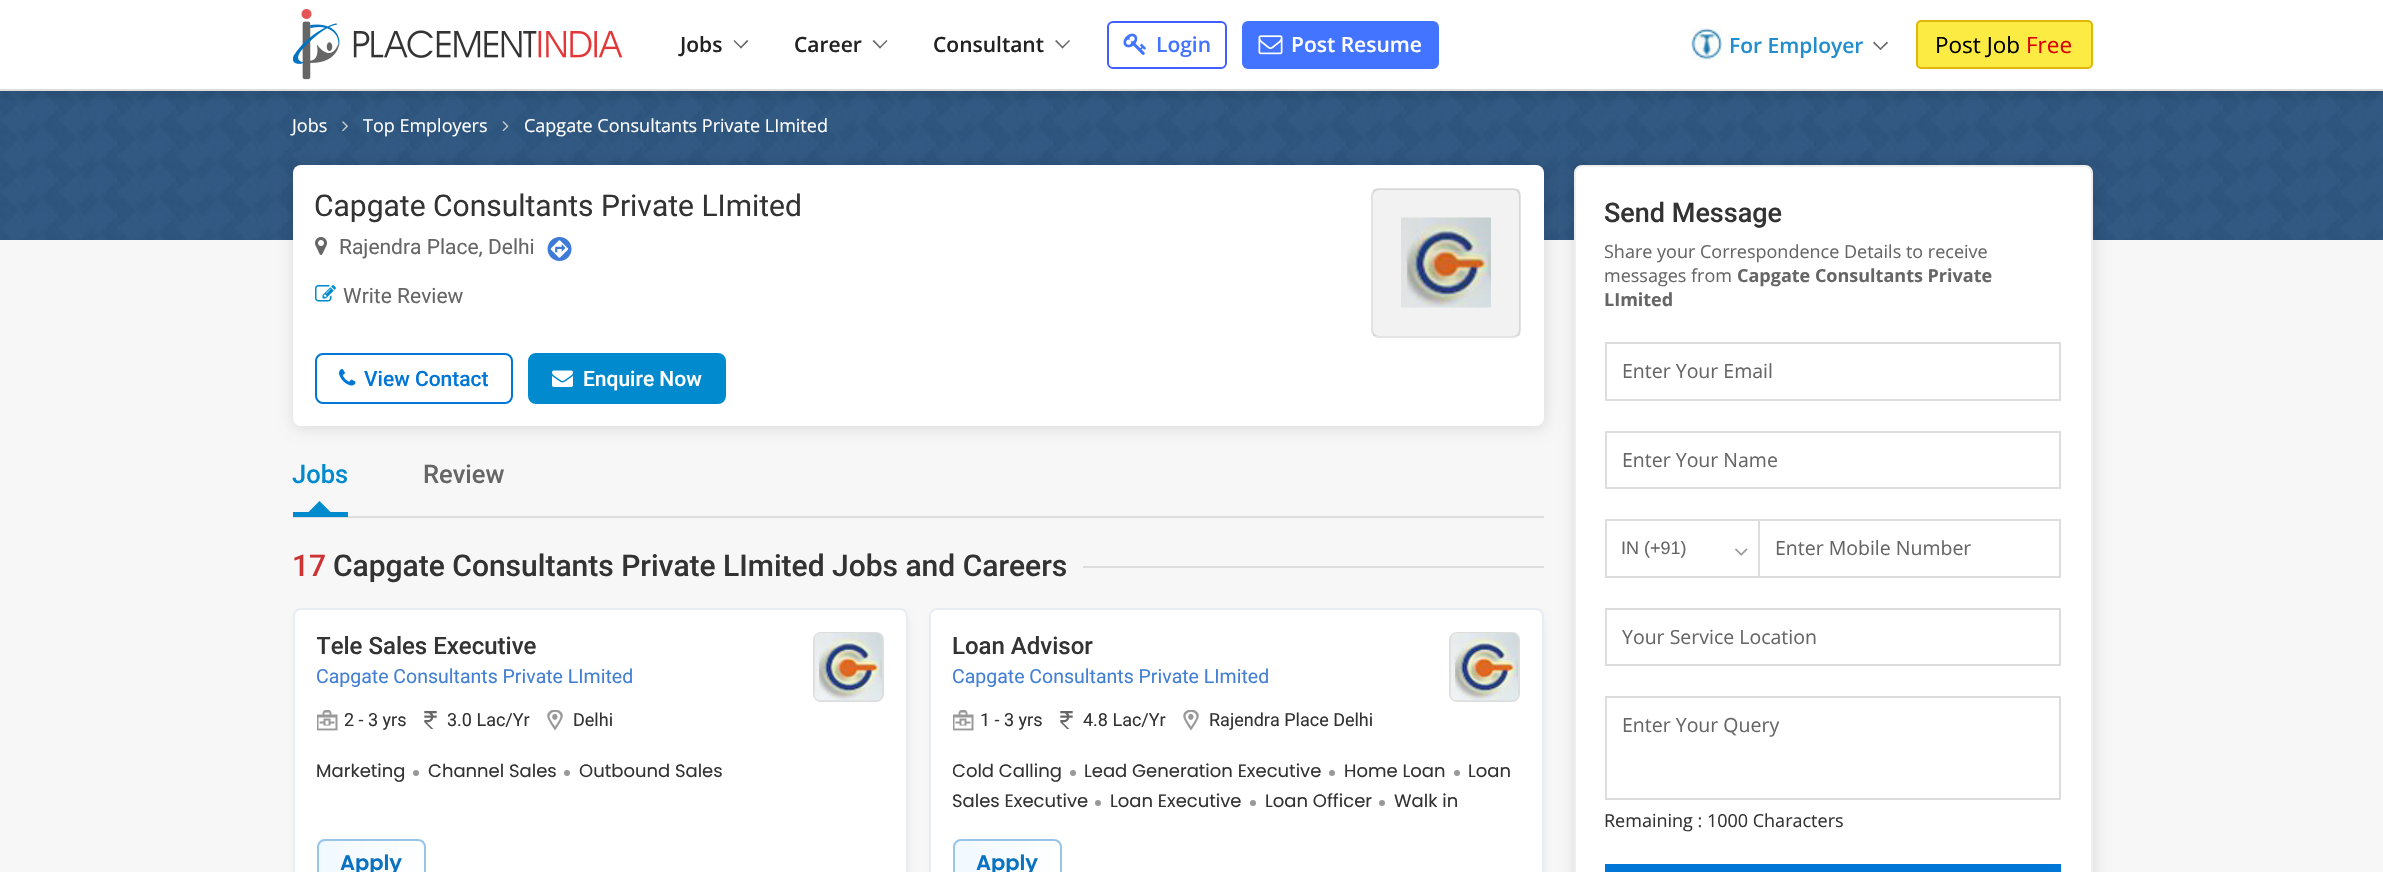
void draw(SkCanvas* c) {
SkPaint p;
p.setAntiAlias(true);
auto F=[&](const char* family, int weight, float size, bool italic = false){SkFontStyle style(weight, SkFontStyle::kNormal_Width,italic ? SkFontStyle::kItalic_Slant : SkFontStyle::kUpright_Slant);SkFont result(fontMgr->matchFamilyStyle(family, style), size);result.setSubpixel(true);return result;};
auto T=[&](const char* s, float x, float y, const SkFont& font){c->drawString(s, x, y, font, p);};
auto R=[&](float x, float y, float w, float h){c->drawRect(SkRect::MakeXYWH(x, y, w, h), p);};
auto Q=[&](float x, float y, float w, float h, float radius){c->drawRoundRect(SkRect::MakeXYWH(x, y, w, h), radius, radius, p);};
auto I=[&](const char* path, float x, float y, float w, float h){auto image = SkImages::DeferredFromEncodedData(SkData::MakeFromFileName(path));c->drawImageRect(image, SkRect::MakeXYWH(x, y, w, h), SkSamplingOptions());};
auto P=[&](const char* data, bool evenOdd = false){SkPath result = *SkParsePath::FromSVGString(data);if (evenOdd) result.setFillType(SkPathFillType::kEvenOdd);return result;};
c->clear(0xffffffff);
I("5.png",0,91,2383,149);
c->save();
c->clipRect(SkRect::MakeXYWH(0,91,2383,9));
p.setColor(0x1f000000);
p.setMaskFilter(SkMaskFilter::MakeBlur(kNormal_SkBlurStyle, 7.5));
c->drawRect(SkRect::MakeXYWH(0,3,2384,90),p);
p.setMaskFilter(nullptr);
c->restore();
p.setColor(0xffdddddd);
R(0,89,2383,2);
I("1.png",293,9,330,71);
auto f1 = F("Open Sans",600,21);
p.setColor(0xff222222);
T("Jobs",680,52,f1);
p.setColor(0xff666666);
c->drawPath(P("M748.5 41l-7.5 7.5l-1-1l7-7.5z"),p);
c->drawPath(P("M742 47.5l-1 1l-7.5-7.5l1-1z"),p);
p.setColor(0xff222222);
T("Career",794,52,f1);
p.setColor(0xff666666);
c->drawPath(P("M887.5 41l-7.5 7.5l-1-1l7.5-7.5z"),p);
c->drawPath(P("M881 47.5l-1 1l-7.5-7.5l1.5-1z"),p);
p.setColor(0xff222222);
T("Consultant",933,52,f1);
p.setColor(0xff666666);
c->drawPath(P("M1070 41l-7.5 7.5l-1-1l7.5-7.5z"),p);
c->drawPath(P("M1063.5 47.5l-1 1l-7.5-7.5l1.5-1z"),p);
p.setStroke(true);
p.setStrokeWidth(2);
p.setColor(0xff435eff);
c->drawRoundRect(SkRect::MakeXYWH(1108,22,118,46),5,5,p);
I("2.png",1123,33,23,22);
p.setStroke(false);
p.setColor(0xff4374ff);
T("Login",1156,52,f1);
c->drawRoundRect(SkRect::MakeXYWH(1243,22,195,46),5,5,p);
p.setStroke(true);
c->drawRoundRect(SkRect::MakeXYWH(1243,22,195,46),5,5,p);
I("3.png",1258,35,25,20);
p.setStroke(false);
p.setColor(0xffffffff);
T("Post Resume",1291,52,f1);
I("4.png",1691,28,31,32);
p.setColor(0xff228ecd);
T("For Employer",1729,53,f1);
p.setColor(0xff666666);
c->drawPath(P("M1888 43l-7.5 7l-1-1l7.5-7.5z"),p);
c->drawPath(P("M1881.5 49l-1 1l-7.5-7l1-1.5z"),p);
p.setColor(0xfffceb42);
c->drawRoundRect(SkRect::MakeXYWH(1917,21,175,47),4,4,p);
p.setStroke(true);
p.setColor(0xffe1b70c);
c->drawRoundRect(SkRect::MakeXYWH(1917,21,175,47),4,4,p);
auto f2 = F("Open Sans",400,22.5);
p.setStroke(false);
p.setColor(0xff000000);
T("Post Job",1935,53,f2);
p.setColor(0xffdd0000);
T("Free",2026,53,f2);
auto f3 = F("Open Sans",400,18);
p.setColor(0xffffffff);
T("Jobs",292,132,f3);
I("6.png",342,121,6,11);
T("Top Employers",363,132,f3);
I("7.png",502,121,7,11);
T("Capgate Consultants Private LImited",524,132,f3);
p.setColor(0xfff7f7f7);
R(0,240,2383,632);
p.setColor(0x1f000000);
p.setMaskFilter(SkMaskFilter::MakeBlur(kNormal_SkBlurStyle, 7.5));
c->drawRoundRect(SkRect::MakeXYWH(294,167,1251,261),8,8,p);
p.setMaskFilter(nullptr);
p.setColor(0xffffffff);
Q(293,165,1251,261,8);
auto f4 = F("Roboto",400,30);
p.setColor(0xff333333);
T("Capgate Consultants Private LImited",314,216,f4);
I("8.png",315,237,12,18);
auto f5 = F("Roboto",400,21);
p.setColor(0xff666666);
T("Rajendra Place, Delhi",339,254,f5);
I("9.png",547,237,25,24);
I("10.png",315,285,21,17);
T("Write Review",343,303,f5);
p.setStroke(true);
p.setColor(0xffe3e3e3);
c->drawRoundRect(SkRect::MakeXYWH(1372,189,148,148),7,7,p);
I("11.png",1401,217,90,91);
p.setStroke(false);
p.setColor(0x0d000000);
R(1373,189,147,147);
p.setStroke(true);
p.setColor(0xff0076d7);
c->drawRoundRect(SkRect::MakeXYWH(316,354,196,49),7,7,p);
I("12.png",339,369,17,17);
auto f6 = F("Roboto",500,21);
p.setStroke(false);
T("View Contact",364,386,f6);
p.setColor(0xff028acf);
c->drawRoundRect(SkRect::MakeXYWH(529,354,196,49),7,7,p);
p.setStroke(true);
c->drawRoundRect(SkRect::MakeXYWH(529,354,196,49),7,7,p);
I("13.png",552,370,21,17);
p.setStroke(false);
p.setColor(0xffffffff);
T("Enquire Now",583,386,f6);
p.setColor(0xffdddddd);
R(293,516,1251,2);
auto f7 = F("Roboto",500,25.5);
p.setColor(0xff028acf);
T("Jobs",292,483,f7);
c->drawPath(P("M334.5 516h-30l15-15z"),p);
R(293,512,55,5);
p.setColor(0xff666666);
T("Review",423,483,f7);
auto f8 = F("Roboto",500,30);
p.setColor(0xffcc3333);
T("17",292,576,f8);
p.setColor(0xff333333);
T("Capgate Consultants Private LImited Jobs and Careers",333,576,f8);
p.setColor(0xffdddddd);
R(1083,566,461,2);
p.setColor(0xffd3e2ef);
p.setMaskFilter(SkMaskFilter::MakeBlur(kNormal_SkBlurStyle, 4));
c->drawRoundRect(SkRect::MakeXYWH(300,618,606,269),3,3,p);
p.setMaskFilter(nullptr);
p.setColor(0xffffffff);
c->drawRoundRect(SkRect::MakeXYWH(294,609,613,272),7,7,p);
p.setStroke(true);
p.setColor(0xffe8edf3);
c->drawRoundRect(SkRect::MakeXYWH(294,609,613,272),7,7,p);
c->save();
c->clipRect(SkRect::MakeXYWH(317,632,453,60));
auto f9 = F("Roboto",500,24);
p.setStroke(false);
p.setColor(0xff333333);
T("Tele Sales Executive",316,654,f9);
c->restore();
auto f10 = F("Roboto",400,19.5);
p.setColor(0xff4380d4);
T("Capgate Consultants Private LImited",316,683,f10);
p.setStroke(true);
p.setColor(0xffdddddd);
c->drawRoundRect(SkRect::MakeXYWH(814,633,69,68),7,7,p);
I("14.png",814,633,68,68);
I("15.png",317,710,21,21);
auto f11 = F("Roboto",400,18);
p.setStroke(false);
p.setColor(0xff333333);
T("2 - 3 yrs",344,726,f11);
I("16.png",424,711,13,18);
T("3.0 Lac/Yr",447,726,f11);
I("17.png",547,710,16,21);
T("Delhi",573,726,f11);
auto f12 = F("Poppins",400,18);
T("Marketing",316,777,f12);
p.setColor(0xff999999);
c->drawCircle(416,773,3,p);
p.setColor(0xff333333);
T("Channel Sales",428,777,f12);
p.setColor(0xff999999);
c->drawCircle(567,773,3,p);
p.setColor(0xff333333);
T("Outbound Sales",579,777,f12);
c->save();
c->clipPath(P("M325 839h93c4.5 0 8 3.5 8 8v32c0 4.5-3.5 8-8 8h-93c-4.5 0-8-3.5-8-8v-32c0-4.5 3.5-8 8-8z"),true);
{
const SkColor colors[] = {0xfff1f9ff,0xffffffff};
const float stops[] = {0,1};
const SkPoint ends[] = {{318,863}, {425,863}};
p.setShader(SkGradientShader::MakeLinear(ends, colors, stops, 2, SkTileMode::kClamp));
p.setAlpha(255);
}
R(318,839,107,33);
c->restore();
p.setStroke(true);
p.setShader(nullptr);
p.setColor(0xff96c5e9);
c->drawRoundRect(SkRect::MakeXYWH(318,840,107,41),7,7,p);
auto f13 = F("Poppins",600,21);
p.setStroke(false);
p.setColor(0xff0972c1);
T("Apply",340,870,f13);
p.setColor(0xffd3e2ef);
p.setMaskFilter(SkMaskFilter::MakeBlur(kNormal_SkBlurStyle, 4));
c->drawRoundRect(SkRect::MakeXYWH(936,618,606,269),3,3,p);
p.setMaskFilter(nullptr);
p.setColor(0xffffffff);
c->drawRoundRect(SkRect::MakeXYWH(930,609,613,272),7,7,p);
p.setStroke(true);
p.setColor(0xffe8edf3);
c->drawRoundRect(SkRect::MakeXYWH(930,609,613,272),7,7,p);
p.setStroke(false);
p.setColor(0xff333333);
T("Loan Advisor",952,654,f9);
p.setColor(0xff4380d4);
T("Capgate Consultants Private LImited",952,683,f10);
p.setStroke(true);
p.setColor(0xffdddddd);
c->drawRoundRect(SkRect::MakeXYWH(1450,633,69,68),7,7,p);
I("18.png",1450,633,68,68);
I("15.png",953,710,21,21);
p.setStroke(false);
p.setColor(0xff333333);
T("1 - 3 yrs",980,726,f11);
I("16.png",1060,711,13,18);
T("4.8 Lac/Yr",1083,726,f11);
I("17.png",1183,710,16,21);
T("Rajendra Place Delhi",1209,726,f11);
c->save();
c->clipRect(SkRect::MakeXYWH(953,756,567,60));
T("Cold Calling",952,777,f12);
c->restore();
p.setColor(0xff999999);
c->drawCircle(1073,773,3,p);
p.setColor(0xff333333);
T("Lead Generation Executive",1084,777,f12);
p.setColor(0xff999999);
c->drawCircle(1457,773,3,p);
p.setColor(0xff333333);
T("Loan",1468,777,f12);
c->save();
c->clipRect(SkRect::MakeXYWH(953,756,567,60));
T("Sales Executive",952,807,f12);
c->restore();
p.setColor(0xff999999);
c->drawCircle(1332,773,3,p);
p.setColor(0xff333333);
T("Home Loan",1344,777,f12);
p.setColor(0xff999999);
c->drawCircle(1098,803,3,p);
p.setColor(0xff333333);
T("Loan Executive",1110,807,f12);
p.setColor(0xff999999);
c->drawCircle(1253,803,3,p);
p.setColor(0xff333333);
T("Loan Officer",1265,807,f12);
p.setColor(0xff999999);
c->drawCircle(1382,803,3,p);
p.setColor(0xff333333);
T("Walk in",1394,807,f12);
c->save();
c->clipPath(P("M961 839h93c4.5 0 8 3.5 8 8v32c0 4.5-3.5 8-8 8h-93c-4.5 0-8-3.5-8-8v-32c0-4.5 3.5-8 8-8z"),true);
{
const SkColor colors[] = {0xfff1f9ff,0xffffffff};
const float stops[] = {0,1};
const SkPoint ends[] = {{954,863}, {1061,863}};
p.setShader(SkGradientShader::MakeLinear(ends, colors, stops, 2, SkTileMode::kClamp));
p.setAlpha(255);
}
R(954,839,107,33);
c->restore();
p.setStroke(true);
p.setShader(nullptr);
p.setColor(0xff96c5e9);
c->drawRoundRect(SkRect::MakeXYWH(954,840,107,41),7,7,p);
p.setStroke(false);
p.setColor(0xff0972c1);
T("Apply",976,870,f13);
p.setColor(0x1f000000);
p.setMaskFilter(SkMaskFilter::MakeBlur(kNormal_SkBlurStyle, 7.5));
c->drawRoundRect(SkRect::MakeXYWH(1575,167,519,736),8,8,p);
p.setMaskFilter(nullptr);
p.setColor(0xffffffff);
c->drawRoundRect(SkRect::MakeXYWH(1575,166,517,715),7,7,p);
p.setStroke(true);
p.setColor(0xffeeeeee);
c->drawRoundRect(SkRect::MakeXYWH(1575,166,517,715),7,7,p);
auto f14 = F("Roboto",500,27);
p.setStroke(false);
p.setColor(0xff333333);
T("Send Message",1604,222,f14);
p.setColor(0xff666666);
T("Share your Correspondence Details to receive",1604,258,f3);
T("messages from",1604,282,f3);
auto f15 = F("Open Sans",700,18);
T("Capgate Consultants Private",1737,282,f15);
T("LImited",1604,306,f15);
p.setStroke(true);
p.setColor(0xffdddddd);
c->drawRect(SkRect::MakeXYWH(1606,343,454,57),p);
auto f16 = F("Open Sans",400,19.5);
p.setStroke(false);
p.setColor(0xff666666);
T("Enter Your Email",1622,378,f16);
p.setStroke(true);
p.setColor(0xffdddddd);
c->drawRect(SkRect::MakeXYWH(1606,432,454,56),p);
p.setStroke(false);
p.setColor(0xff666666);
T("Enter Your Name",1622,467,f16);
p.setColor(0xffdddddd);
R(1605,519,153,2);
R(1605,576,153,2);
R(1605,519,2,59);
auto f17 = F("Liberation Sans",400,18);
p.setColor(0xff666666);
T("IN (+91)",1621,554,f17);
I("19.png",1735,548,13,8);
p.setStroke(true);
p.setColor(0xffdddddd);
c->drawRect(SkRect::MakeXYWH(1759,520,301,57),p);
p.setStroke(false);
p.setColor(0xff666666);
T("Enter Mobile Number",1775,555,f16);
p.setStroke(true);
p.setColor(0xffdddddd);
c->drawRect(SkRect::MakeXYWH(1606,609,454,56),p);
p.setStroke(false);
p.setColor(0xff666666);
T("Your Service Location",1622,644,f16);
p.setStroke(true);
p.setColor(0xffdddddd);
c->drawRect(SkRect::MakeXYWH(1606,697,454,102),p);
p.setStroke(false);
p.setColor(0xff666666);
T("Enter Your Query",1622,732,f16);
p.setColor(0xff333333);
T("Remaining : 1000 Characters",1604,827,f3);
p.setColor(0xff0076d7);
R(1605,864,456,8);
}
